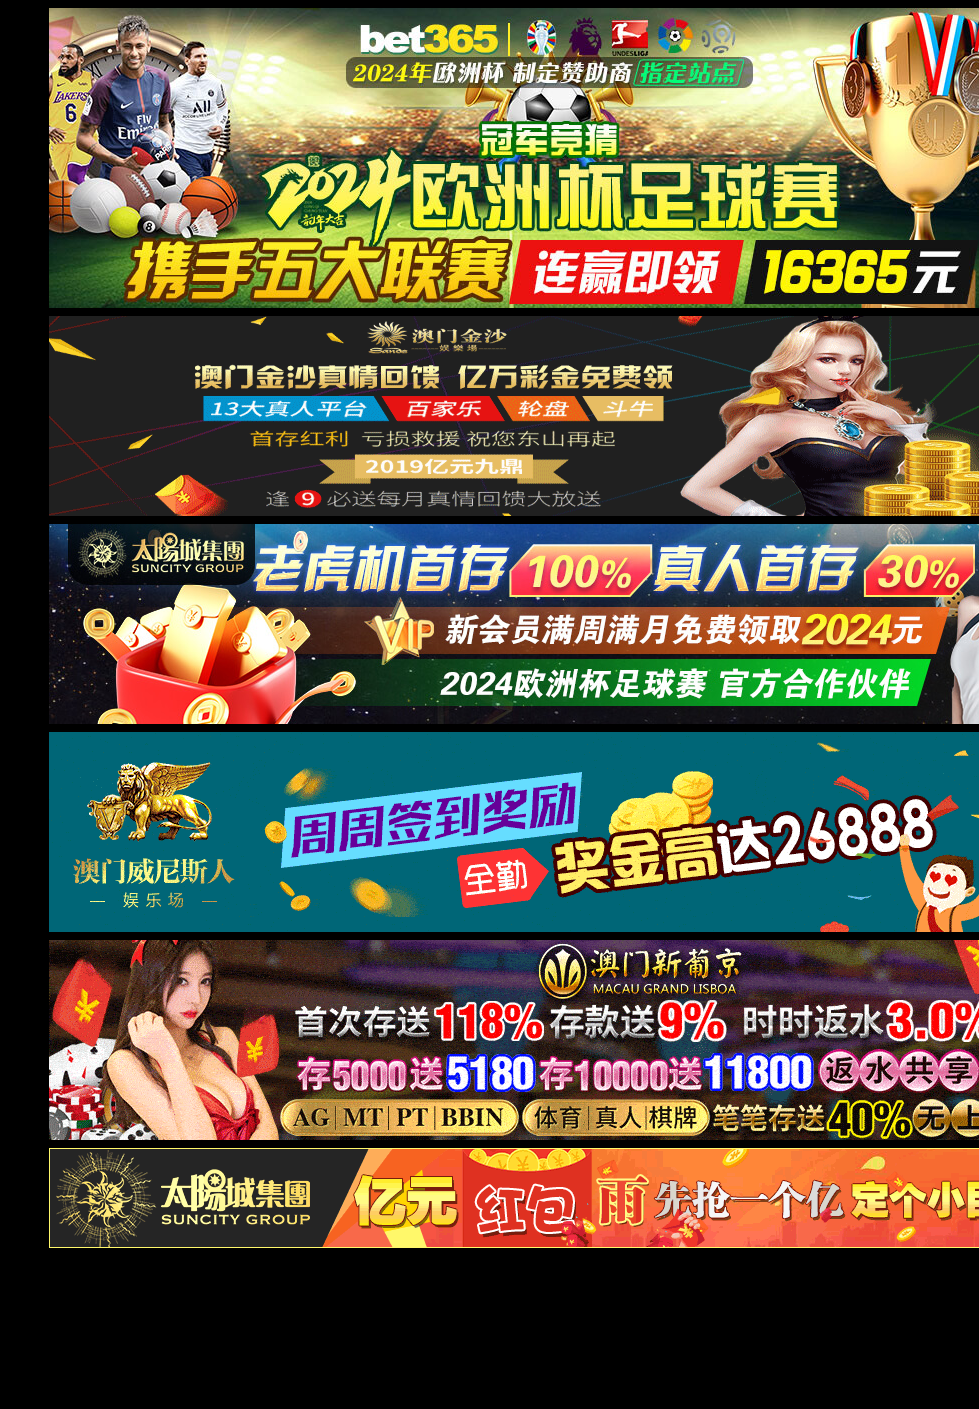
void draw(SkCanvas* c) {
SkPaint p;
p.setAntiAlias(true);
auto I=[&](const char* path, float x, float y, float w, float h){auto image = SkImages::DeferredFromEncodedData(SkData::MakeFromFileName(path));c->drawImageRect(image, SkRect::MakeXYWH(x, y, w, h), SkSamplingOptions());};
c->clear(0xff000000);
I("1.png",49,8,930,1240);
}
